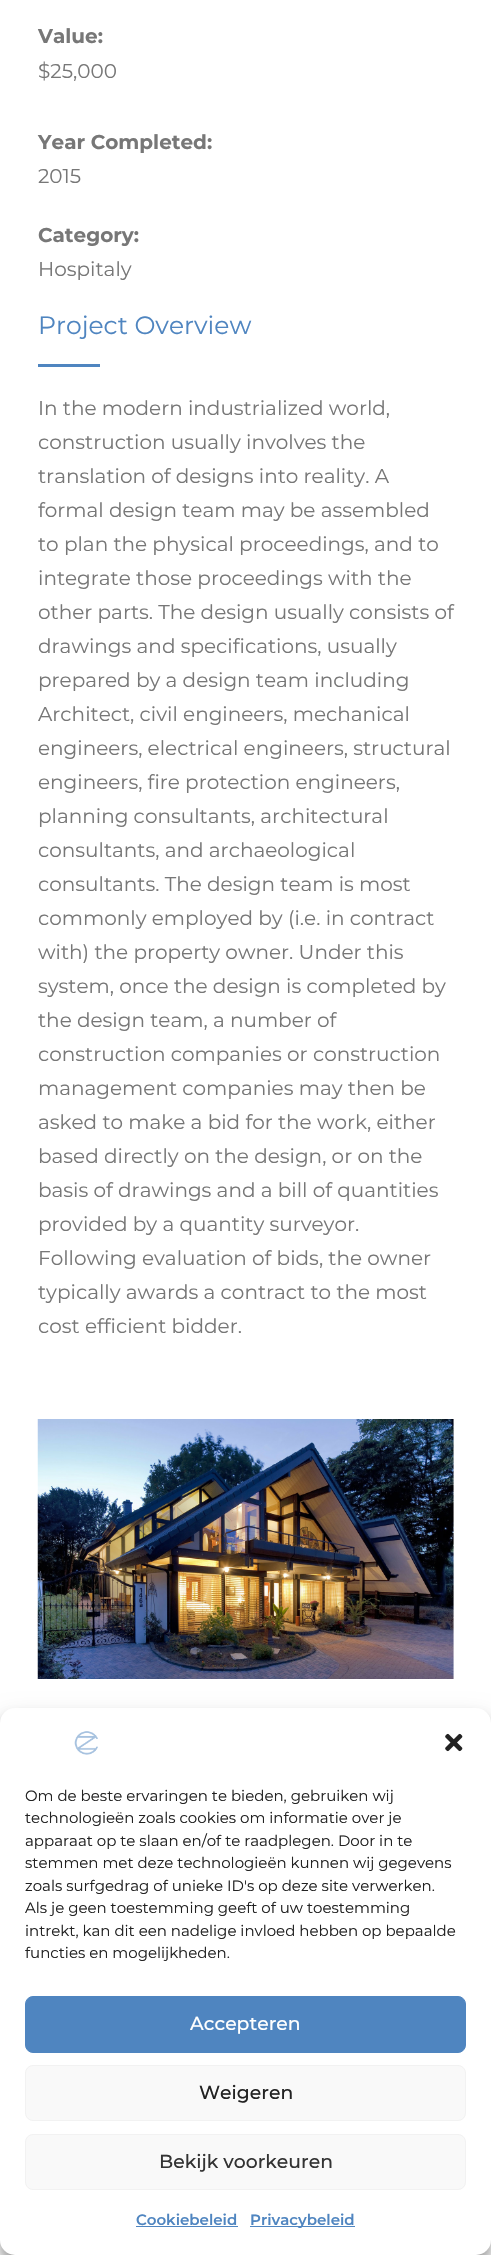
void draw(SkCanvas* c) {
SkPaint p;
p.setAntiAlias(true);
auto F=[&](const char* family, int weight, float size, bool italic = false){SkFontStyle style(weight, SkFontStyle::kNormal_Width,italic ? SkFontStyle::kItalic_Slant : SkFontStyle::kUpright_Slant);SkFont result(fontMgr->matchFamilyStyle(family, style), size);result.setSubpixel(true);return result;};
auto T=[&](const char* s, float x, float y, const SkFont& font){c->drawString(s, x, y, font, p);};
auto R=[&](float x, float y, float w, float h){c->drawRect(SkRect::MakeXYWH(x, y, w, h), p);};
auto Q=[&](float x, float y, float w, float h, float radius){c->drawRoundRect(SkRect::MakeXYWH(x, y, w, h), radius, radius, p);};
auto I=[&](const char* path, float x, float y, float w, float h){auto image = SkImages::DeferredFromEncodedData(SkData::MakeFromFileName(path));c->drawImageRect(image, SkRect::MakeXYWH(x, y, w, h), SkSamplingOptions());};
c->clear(0xffffffff);
auto f1 = F("Montserrat",700,20);
p.setColor(0xff777777);
T("Value:",38,43,f1);
auto f2 = F("Montserrat",400,20);
T("$25,000",38,78,f2);
T("Year Completed:",38,149,f1);
T("2015",38,183,f2);
T("Category:",38,242,f1);
T("Hospitaly",38,276,f2);
auto f3 = F("Montserrat",400,25);
p.setColor(0xff4f85c0);
T("Project Overview",38,334,f3);
R(38,364,62,3);
p.setColor(0xff777777);
T("In the modern industrialized world,",38,415,f2);
T("construction usually involves the",38,449,f2);
T("translation of designs into reality. A",38,483,f2);
T("formal design team may be assembled",38,517,f2);
T("to plan the physical proceedings, and to",38,551,f2);
T("integrate those proceedings with the",38,585,f2);
T("other parts. The design usually consists of",38,619,f2);
T("drawings and specifications, usually",38,653,f2);
T("prepared by a design team including",38,687,f2);
T("Architect, civil engineers, mechanical",38,721,f2);
T("engineers, electrical engineers, structural",38,755,f2);
T("engineers, fire protection engineers,",38,789,f2);
T("planning consultants, architectural",38,823,f2);
T("consultants, and archaeological",38,857,f2);
T("consultants. The design team is most",38,891,f2);
T("commonly employed by (i.e. in contract",38,925,f2);
T("with) the property owner. Under this",38,959,f2);
T("system, once the design is completed by",38,993,f2);
T("the design team, a number of",38,1027,f2);
T("construction companies or construction",38,1061,f2);
T("management companies may then be",38,1095,f2);
T("asked to make a bid for the work, either",38,1129,f2);
T("based directly on the design, or on the",38,1163,f2);
T("basis of drawings and a bill of quantities",38,1197,f2);
T("provided by a quantity surveyor.",38,1231,f2);
T("Following evaluation of bids, the owner",38,1265,f2);
T("typically awards a contract to the most",38,1299,f2);
T("cost efficient bidder.",38,1333,f2);
I("1.png",37,1419,417,260);
p.setColor(0x3b000000);
p.setMaskFilter(SkMaskFilter::MakeBlur(kNormal_SkBlurStyle, 4));
c->drawRoundRect(SkRect::MakeXYWH(0,1715,491,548),15,15,p);
p.setMaskFilter(nullptr);
p.setColor(0x30000000);
p.setMaskFilter(SkMaskFilter::MakeBlur(kNormal_SkBlurStyle, 12.5));
c->drawRoundRect(SkRect::MakeXYWH(0,1720,491,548),15,15,p);
p.setMaskFilter(nullptr);
p.setColor(0xffffffff);
Q(0,1708,491,547,15);
I("2.png",74,1731,24,24);
I("3.png",445,1733,18,19);
auto f4 = F("Montserrat",400,15);
p.setColor(0xff222222);
T("Om de beste ervaringen te bieden, gebruiken wij",25,1801,f4);
T("technologieën zoals cookies om informatie over je",25,1823,f4);
T("apparaat op te slaan en/of te raadplegen. Door in te",25,1846,f4);
T("stemmen met deze technologieën kunnen wij gegevens",25,1868,f4);
T("zoals surfgedrag of unieke ID's op deze site verwerken.",25,1891,f4);
T("Als je geen toestemming geeft of uw toestemming",25,1913,f4);
T("intrekt, kan dit een nadelige invloed hebben op bepaalde",25,1936,f4);
T("functies en mogelijkheden.",25,1958,f4);
p.setColor(0xff4f85c0);
c->drawRoundRect(SkRect::MakeXYWH(25.5,1996.5,440,56),7.5,7.5,p);
p.setStroke(true);
p.setStrokeWidth(1);
c->drawRoundRect(SkRect::MakeXYWH(25.5,1996.5,440,56),7.5,7.5,p);
auto f5 = F("Montserrat",500,18.75);
p.setStroke(false);
p.setColor(0xffffffff);
T("Accepteren",190,2030,f5);
p.setColor(0xfff9f9f9);
c->drawRoundRect(SkRect::MakeXYWH(25.5,2065.5,440,55),7.5,7.5,p);
p.setStroke(true);
p.setColor(0xfff2f2f2);
c->drawRoundRect(SkRect::MakeXYWH(25.5,2065.5,440,55),7.5,7.5,p);
p.setStroke(false);
p.setColor(0xff222222);
T("Weigeren",199,2099,f5);
p.setColor(0xfff9f9f9);
c->drawRoundRect(SkRect::MakeXYWH(25.5,2134.5,440,55),7.5,7.5,p);
p.setStroke(true);
p.setColor(0xfff2f2f2);
c->drawRoundRect(SkRect::MakeXYWH(25.5,2134.5,440,55),7.5,7.5,p);
p.setStroke(false);
p.setColor(0xff333333);
T("Bekijk voorkeuren",159,2168,f5);
auto f6 = F("Montserrat",600,15);
p.setColor(0xff4f85c0);
T("Cookiebeleid",136,2225,f6);
R(136,2226,102,1);
R(250,2226,105,1);
T("Privacybeleid",250,2225,f6);
}
